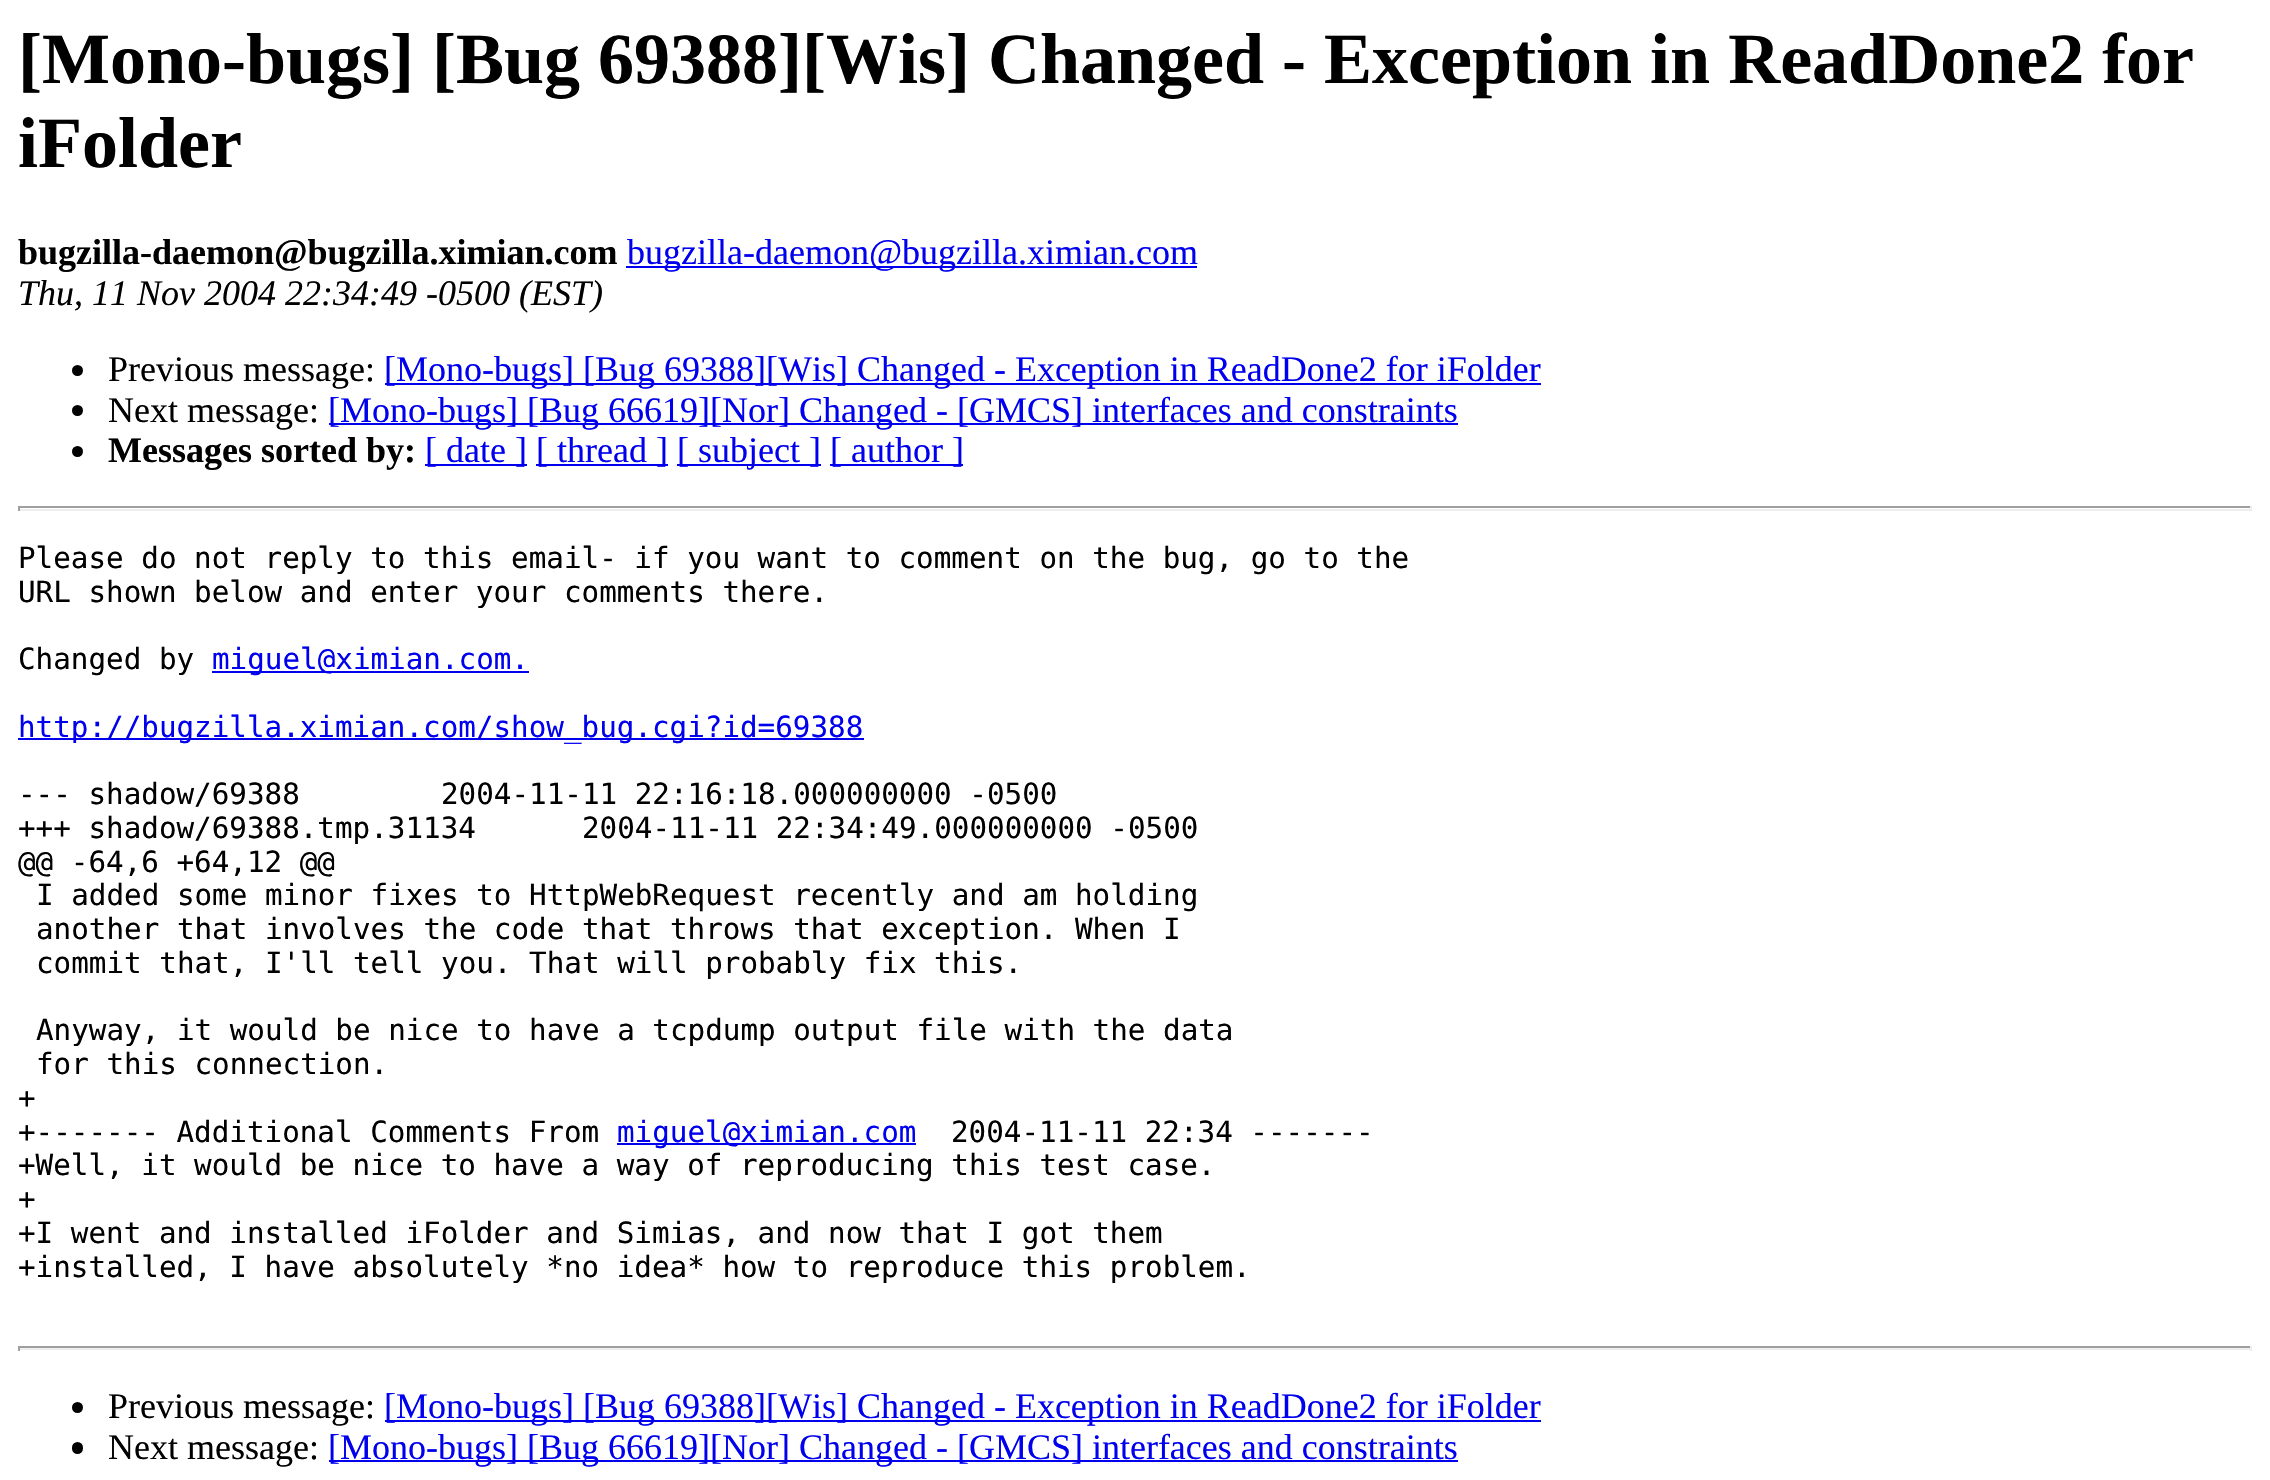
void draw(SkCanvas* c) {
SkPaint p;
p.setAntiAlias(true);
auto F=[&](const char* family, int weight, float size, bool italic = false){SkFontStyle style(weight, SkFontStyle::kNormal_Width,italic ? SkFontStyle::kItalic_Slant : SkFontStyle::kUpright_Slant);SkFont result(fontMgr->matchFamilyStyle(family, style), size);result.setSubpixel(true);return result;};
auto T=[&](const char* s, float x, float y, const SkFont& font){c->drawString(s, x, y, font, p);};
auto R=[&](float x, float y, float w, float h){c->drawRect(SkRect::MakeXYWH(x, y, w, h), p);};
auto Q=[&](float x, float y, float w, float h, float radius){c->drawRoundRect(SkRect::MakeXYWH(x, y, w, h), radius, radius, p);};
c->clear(0xffffffff);
auto f1 = F("Liberation Serif",700,72);
p.setColor(0xff000000);
T("[Mono-bugs] [Bug 69388][Wis] Changed - Exception in ReadDone2 for",18,83,f1);
T("iFolder",18,167,f1);
auto f2 = F("Liberation Serif",700,36);
T("bugzilla-daemon@bugzilla.ximian.com",18,264,f2);
p.setColor(0xff0000ee);
R(626,266,571,2);
auto f3 = F("Liberation Serif",400,36);
T("bugzilla-daemon@bugzilla.ximian.com",627,264,f3);
auto f4 = F("Liberation Serif",400,36,true);
p.setColor(0xff000000);
T("Thu, 11 Nov 2004 22:34:49 -0500 (EST)",18,305,f4);
c->drawCircle(77.5,370.5,5.5,p);
T("Previous message:",108,381,f3);
p.setColor(0xff0000ee);
R(385,383,1156,2);
T("[Mono-bugs] [Bug 69388][Wis] Changed - Exception in ReadDone2 for iFolder",384,381,f3);
p.setColor(0xff000000);
c->drawCircle(77.5,410.5,5.5,p);
T("Next message:",108,422,f3);
p.setColor(0xff0000ee);
R(329,423,1129,2);
T("[Mono-bugs] [Bug 66619][Nor] Changed - [GMCS] interfaces and constraints",328,422,f3);
p.setColor(0xff000000);
c->drawCircle(77.5,451.5,5.5,p);
T("Messages sorted by:",108,462,f2);
p.setColor(0xff0000ee);
R(425,464,102,2);
T("[ date ]",425,462,f3);
R(536,464,132,2);
T("[ thread ]",536,462,f3);
R(677,464,144,2);
T("[ subject ]",677,462,f3);
R(830,464,133,2);
T("[ author ]",830,462,f3);
p.setColor(0xff9f9f9f);
R(18,506,2234,2);
p.setColor(0xffeeeeee);
R(2250,506,2,5);
R(18,509,2234,2);
p.setColor(0xff9f9f9f);
R(18,506,2,5);
auto f5 = F("DejaVu Sans Mono",400,29.25);
p.setColor(0xff000000);
T("Please do not reply to this email- if you want to comment on the bug, go to the",18,568,f5);
T("URL shown below and enter your comments there.",18,602,f5);
T("Changed by",18,669,f5);
p.setColor(0xff0000ee);
R(212,671,317,2);
T("miguel@ximian.com.",212,669,f5);
R(18,738,846,2);
T("http://bugzilla.ximian.com/show_bug.cgi?id=69388",18,737,f5);
p.setColor(0xff000000);
T("--- shadow/69388",18,804,f5);
T("2004-11-11 22:16:18.000000000 -0500",441,804,f5);
T("+++ shadow/69388.tmp.31134",18,838,f5);
T("2004-11-11 22:34:49.000000000 -0500",582,838,f5);
T("@@ -64,6 +64,12 @@",18,872,f5);
T("I added some minor fixes to HttpWebRequest recently and am holding",36,905,f5);
T("another that involves the code that throws that exception. When I",36,939,f5);
T("commit that, I'll tell you. That will probably fix this.",36,973,f5);
T("Anyway, it would be nice to have a tcpdump output file with the data",36,1040,f5);
T("for this connection.",36,1074,f5);
T("+",18,1108,f5);
T("+------- Additional Comments From",18,1142,f5);
p.setColor(0xff0000ee);
R(617,1143,299,2);
T("miguel@ximian.com",617,1142,f5);
p.setColor(0xff000000);
T("2004-11-11 22:34 -------",951,1142,f5);
T("+Well, it would be nice to have a way of reproducing this test case.",18,1175,f5);
T("+",18,1209,f5);
T("+I went and installed iFolder and Simias, and now that I got them",18,1243,f5);
T("+installed, I have absolutely *no idea* how to reproduce this problem.",18,1277,f5);
p.setColor(0xff9f9f9f);
R(18,1346,2234,2);
p.setColor(0xffeeeeee);
R(2250,1346,2,5);
R(18,1348,2234,2);
p.setColor(0xff9f9f9f);
R(18,1346,2,5);
p.setColor(0xff000000);
c->drawCircle(77.5,1407.5,5.5,p);
T("Previous message:",108,1418,f3);
p.setColor(0xff0000ee);
R(385,1420,1156,2);
T("[Mono-bugs] [Bug 69388][Wis] Changed - Exception in ReadDone2 for iFolder",384,1418,f3);
p.setColor(0xff000000);
Q(72,1442,11,12,5.5);
T("Next message:",108,1459,f3);
p.setColor(0xff0000ee);
R(329,1460,1129,2);
T("[Mono-bugs] [Bug 66619][Nor] Changed - [GMCS] interfaces and constraints",328,1459,f3);
}
